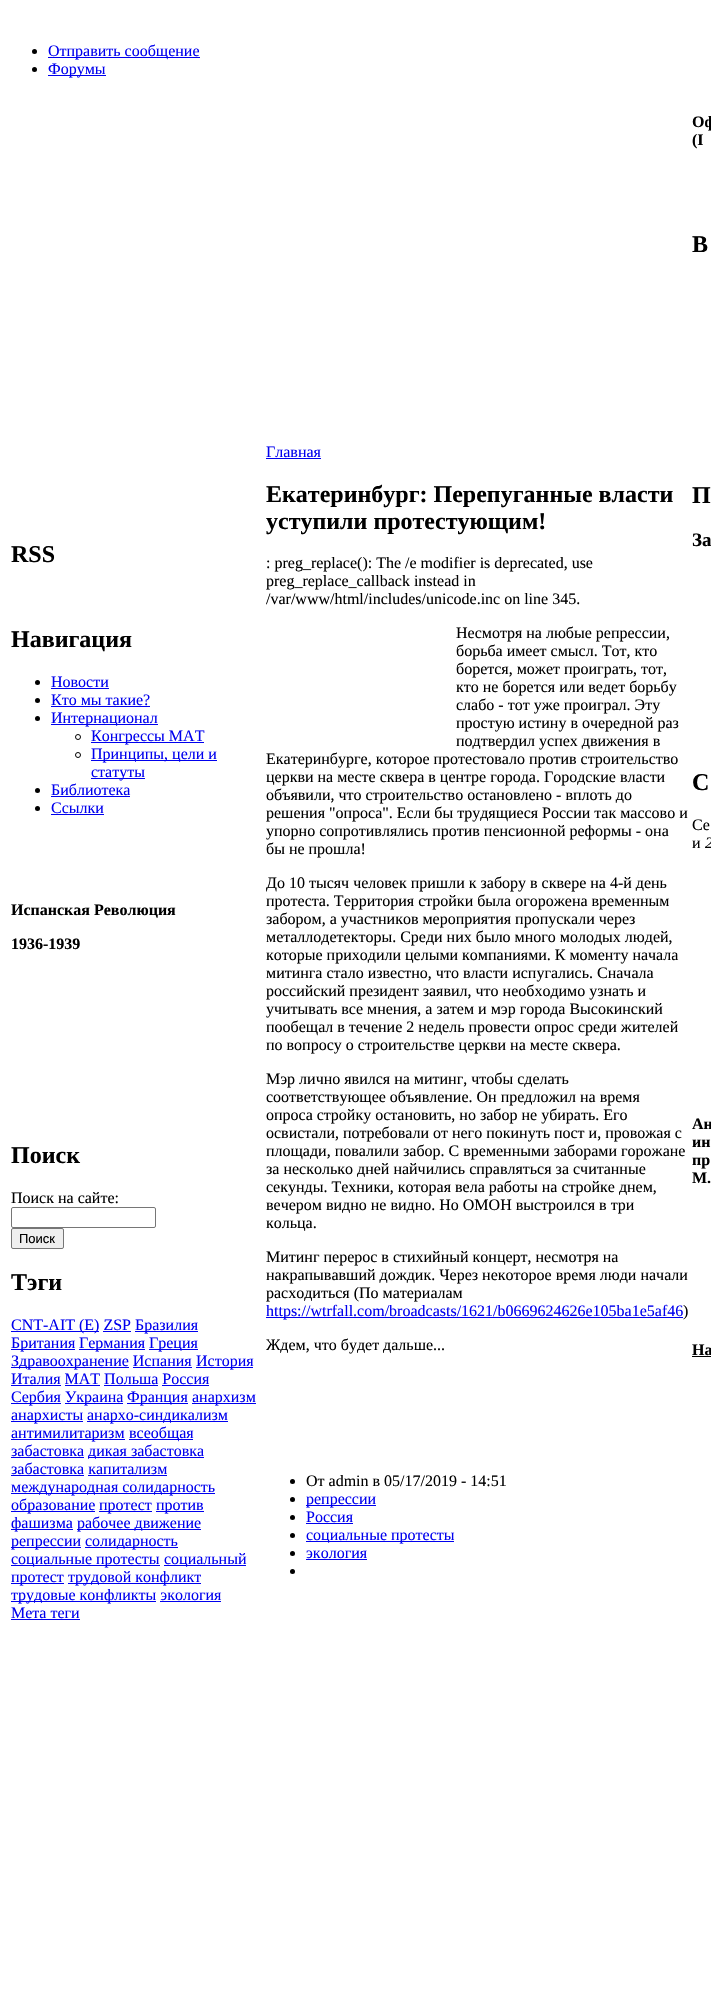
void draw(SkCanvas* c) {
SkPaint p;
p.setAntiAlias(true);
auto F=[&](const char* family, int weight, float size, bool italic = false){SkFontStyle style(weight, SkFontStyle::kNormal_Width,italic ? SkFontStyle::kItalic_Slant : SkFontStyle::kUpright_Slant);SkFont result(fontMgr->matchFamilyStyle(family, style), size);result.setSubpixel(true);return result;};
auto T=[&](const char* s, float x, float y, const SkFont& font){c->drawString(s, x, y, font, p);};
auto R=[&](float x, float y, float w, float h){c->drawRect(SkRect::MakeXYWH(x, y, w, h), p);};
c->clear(0xffffffff);
p.setColor(0xff000000);
c->drawCircle(34.5,51.5,2.5,p);
p.setColor(0xff0000ee);
R(48,57,152,1);
auto f1 = F("Liberation Serif",400,16);
T("Отправить сообщение",48,56,f1);
p.setColor(0xff000000);
c->drawCircle(34.5,69.5,2.5,p);
p.setColor(0xff0000ee);
R(48,75,58,1);
T("Форумы",48,74,f1);
auto f2 = F("Liberation Serif",700,24);
p.setColor(0xff000000);
T("RSS",11,562,f2);
T("Навигация",11,647,f2);
c->drawCircle(37.5,682.5,2.5,p);
p.setColor(0xff0000ee);
T("Новости",51,687,f1);
R(51,688,58,1);
p.setColor(0xff000000);
c->drawCircle(37.5,700.5,2.5,p);
p.setColor(0xff0000ee);
T("Кто мы такие?",51,705,f1);
R(51,706,99,1);
p.setColor(0xff000000);
c->drawCircle(37.5,718.5,2.5,p);
p.setColor(0xff0000ee);
R(51,724,107,1);
T("Интернационал",51,723,f1);
p.setStroke(true);
p.setStrokeWidth(1);
p.setColor(0xff000000);
c->drawCircle(78,737,2.5,p);
p.setStroke(false);
p.setColor(0xff0000ee);
R(91,742,113,1);
T("Конгрессы МАТ",91,741,f1);
p.setStroke(true);
p.setColor(0xff000000);
c->drawCircle(78,755,2.5,p);
p.setStroke(false);
p.setColor(0xff0000ee);
R(91,760,126,1);
T("Принципы, цели и",91,759,f1);
R(91,778,54,1);
T("статуты",91,777,f1);
p.setColor(0xff000000);
c->drawCircle(37.5,790.5,2.5,p);
p.setColor(0xff0000ee);
T("Библиотека",51,795,f1);
R(51,796,79,1);
p.setColor(0xff000000);
c->drawCircle(37.5,808.5,2.5,p);
p.setColor(0xff0000ee);
T("Ссылки",51,813,f1);
R(51,814,53,1);
auto f3 = F("Liberation Serif",700,16);
p.setColor(0xff000000);
T("Испанская Революция",11,915,f3);
T("1936-1939",11,949,f3);
T("Поиск",11,1163,f2);
T("Поиск на сайте:",11,1203,f1);
p.setStroke(true);
p.setColor(0xff767676);
c->drawRoundRect(SkRect::MakeXYWH(11.5,1207.5,144,20),1.5,1.5,p);
p.setStroke(false);
p.setColor(0xffefefef);
c->drawRoundRect(SkRect::MakeXYWH(11.5,1228.5,52,20),1.5,1.5,p);
p.setStroke(true);
p.setColor(0xff767676);
c->drawRoundRect(SkRect::MakeXYWH(11.5,1228.5,52,20),1.5,1.5,p);
auto f4 = F("Liberation Sans",400,13);
p.setStroke(false);
p.setColor(0xff000000);
T("Поиск",19,1243,f4);
T("Тэги",11,1290,f2);
p.setColor(0xff0000ee);
R(11,1331,88,1);
T("CNT-AIT (E) ZSP",11,1330,f1);
R(135,1331,63,1);
T("Бразилия",135,1330,f1);
R(103,1331,28,1);
R(11,1349,64,1);
T("Британия",11,1348,f1);
R(79,1349,66,1);
T("Германия",79,1348,f1);
R(149,1349,49,1);
T("Греция",149,1348,f1);
R(11,1367,118,1);
T("Здравоохранение Испания",11,1366,f1);
R(196,1367,57,1);
T("История",196,1366,f1);
R(133,1367,59,1);
T("Италия МАТ Польша Россия",11,1384,f1);
R(11,1385,50,1);
R(65,1385,35,1);
R(104,1385,54,1);
R(162,1385,47,1);
R(11,1403,50,1);
T("Сербия",11,1402,f1);
R(65,1403,58,1);
T("Украина",65,1402,f1);
R(127,1403,61,1);
T("Франция",127,1402,f1);
R(192,1403,64,1);
T("анархизм",192,1402,f1);
R(11,1421,72,1);
T("анархисты",11,1420,f1);
R(87,1421,141,1);
T("анархо-синдикализм",87,1420,f1);
R(11,1439,114,1);
T("антимилитаризм",11,1438,f1);
R(129,1439,64,1);
T("всеобщая",129,1438,f1);
T("забастовка",11,1456,f1);
R(11,1457,73,1);
R(88,1457,116,1);
T("дикая забастовка",88,1456,f1);
T("забастовка капитализм",11,1474,f1);
R(11,1475,73,1);
R(88,1475,79,1);
R(11,1493,204,1);
T("международная солидарность",11,1492,f1);
R(11,1511,84,1);
T("образование",11,1510,f1);
R(99,1511,53,1);
T("протест",99,1510,f1);
R(156,1511,48,1);
T("против",156,1510,f1);
R(11,1529,62,1);
T("фашизма",11,1528,f1);
R(77,1529,124,1);
T("рабочее движение",77,1528,f1);
R(11,1547,70,1);
T("репрессии",11,1546,f1);
R(85,1547,93,1);
T("солидарность",85,1546,f1);
R(11,1565,149,1);
T("социальные протесты",11,1564,f1);
R(164,1565,82,1);
T("социальный",164,1564,f1);
R(11,1583,53,1);
T("протест",11,1582,f1);
R(68,1583,133,1);
T("трудовой конфликт",68,1582,f1);
R(11,1601,145,1);
T("трудовые конфликты экология",11,1600,f1);
R(160,1601,61,1);
T("Мета теги",11,1618,f1);
R(11,1619,69,1);
T("Главная",266,457,f1);
R(266,458,55,1);
p.setColor(0xff000000);
T("Екатеринбург: Перепуганные власти",266,502,f2);
T("уступили протестующим!",266,529,f2);
T(": preg_replace(): The /e modifier is deprecated, use",266,568,f1);
T("preg_replace_callback instead in",266,586,f1);
T("/var/www/html/includes/unicode.inc on line 345.",266,604,f1);
T("Несмотря на любые репрессии,",456,638,f1);
T("борьба имеет смысл. Тот, кто",456,656,f1);
T("борется, может проиграть, тот,",456,674,f1);
T("кто не борется или ведет борьбу",456,692,f1);
T("слабо - тот уже проиграл. Эту",456,710,f1);
T("простую истину в очередной раз",456,728,f1);
T("подтвердил успех движения в",456,746,f1);
T("Екатеринбурге, которое протестовало против строительство",266,764,f1);
T("церкви на месте сквера в центре города. Городские власти",266,782,f1);
T("объявили, что строительство остановлено - вплоть до",266,800,f1);
T("решения \"опроса\". Если бы трудящиеся России так массово и",266,818,f1);
T("упорно сопротивлялись против пенсионной реформы - она",266,836,f1);
T("бы не прошла!",266,854,f1);
T("До 10 тысяч человек пришли к забору в сквере на 4-й день",266,888,f1);
T("протеста. Территория стройки была огорожена временным",266,906,f1);
T("забором, а участников мероприятия пропускали через",266,924,f1);
T("металлодетекторы. Среди них было много молодых людей,",266,942,f1);
T("которые приходили целыми компаниями. К моменту начала",266,960,f1);
T("митинга стало известно, что власти испугались. Сначала",266,978,f1);
T("российский президент заявил, что необходимо узнать и",266,996,f1);
T("учитывать все мнения, а затем и мэр города Высокинский",266,1014,f1);
T("пообещал в течение 2 недель провести опрос среди жителей",266,1032,f1);
T("по вопросу о строительстве церкви на месте сквера.",266,1050,f1);
T("Мэр лично явился на митинг, чтобы сделать",266,1084,f1);
T("соответствующее объявление. Он предложил на время",266,1102,f1);
T("опроса стройку остановить, но забор не убирать. Его",266,1120,f1);
T("освистали, потребовали от него покинуть пост и, провожая с",266,1138,f1);
T("площади, повалили забор. С временными заборами горожане",266,1156,f1);
T("за несколько дней найчились справляться за считанные",266,1174,f1);
T("секунды. Техники, которая вела работы на стройке днем,",266,1192,f1);
T("вечером видно не видно. Но ОМОН выстроился в три",266,1210,f1);
T("кольца.",266,1228,f1);
T("Митинг перерос в стихийный концерт, несмотря на",266,1262,f1);
T("накрапывавший дождик. Через некоторое время люди начали",266,1280,f1);
T("расходиться (По материалам",266,1298,f1);
p.setColor(0xff0000ee);
R(266,1317,417,1);
T("https://wtrfall.com/broadcasts/1621/b0669624626e105ba1e5af46",266,1316,f1);
p.setColor(0xff000000);
T(")",683,1316,f1);
T("Ждем, что будет дальше...",266,1350,f1);
c->drawCircle(292.5,1481.5,2.5,p);
T("От admin в 05/17/2019 - 14:51",306,1486,f1);
c->drawCircle(292.5,1499.5,2.5,p);
p.setColor(0xff0000ee);
R(306,1505,70,1);
T("репрессии",306,1504,f1);
p.setColor(0xff000000);
c->drawCircle(292.5,1517.5,2.5,p);
p.setColor(0xff0000ee);
T("Россия",306,1522,f1);
R(306,1523,47,1);
p.setColor(0xff000000);
c->drawCircle(292.5,1535.5,2.5,p);
p.setColor(0xff0000ee);
R(306,1541,148,1);
T("социальные протесты",306,1540,f1);
p.setColor(0xff000000);
c->drawCircle(292.5,1553.5,2.5,p);
p.setColor(0xff0000ee);
T("экология",306,1558,f1);
R(306,1559,61,1);
p.setColor(0xff000000);
c->drawCircle(292.5,1571.5,2.5,p);
T("Оф",692,127,f3);
T("(I",692,145,f3);
T("В",692,252,f2);
T("П",692,503,f2);
auto f5 = F("Liberation Serif",700,19);
T("За",692,546,f5);
T("С",692,790,f2);
T("Се",692,830,f1);
T("и",692,848,f1);
auto f6 = F("Liberation Serif",400,16,true);
T("2",705,848,f6);
T("Ан",692,1129,f3);
T("ин",692,1147,f3);
T("пр",692,1165,f3);
T("М.",692,1183,f3);
T("На",692,1355,f3);
R(692,1356,19,1);
}
